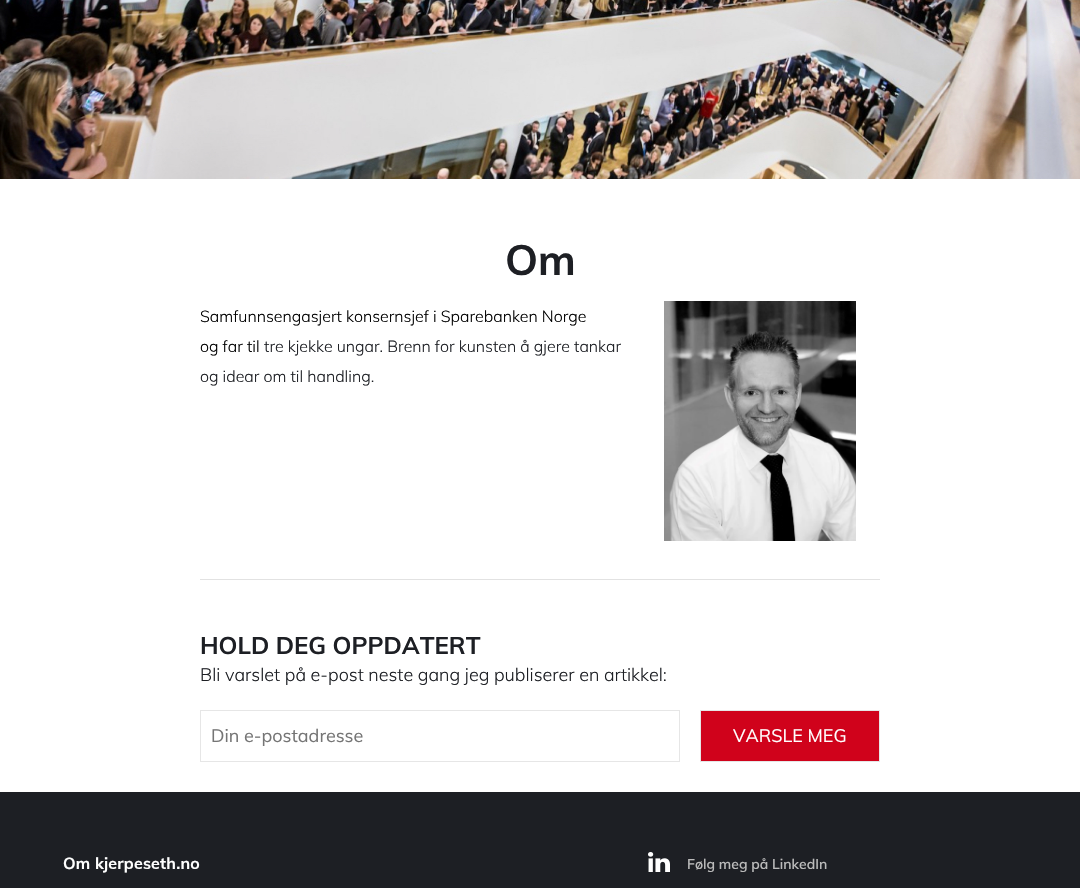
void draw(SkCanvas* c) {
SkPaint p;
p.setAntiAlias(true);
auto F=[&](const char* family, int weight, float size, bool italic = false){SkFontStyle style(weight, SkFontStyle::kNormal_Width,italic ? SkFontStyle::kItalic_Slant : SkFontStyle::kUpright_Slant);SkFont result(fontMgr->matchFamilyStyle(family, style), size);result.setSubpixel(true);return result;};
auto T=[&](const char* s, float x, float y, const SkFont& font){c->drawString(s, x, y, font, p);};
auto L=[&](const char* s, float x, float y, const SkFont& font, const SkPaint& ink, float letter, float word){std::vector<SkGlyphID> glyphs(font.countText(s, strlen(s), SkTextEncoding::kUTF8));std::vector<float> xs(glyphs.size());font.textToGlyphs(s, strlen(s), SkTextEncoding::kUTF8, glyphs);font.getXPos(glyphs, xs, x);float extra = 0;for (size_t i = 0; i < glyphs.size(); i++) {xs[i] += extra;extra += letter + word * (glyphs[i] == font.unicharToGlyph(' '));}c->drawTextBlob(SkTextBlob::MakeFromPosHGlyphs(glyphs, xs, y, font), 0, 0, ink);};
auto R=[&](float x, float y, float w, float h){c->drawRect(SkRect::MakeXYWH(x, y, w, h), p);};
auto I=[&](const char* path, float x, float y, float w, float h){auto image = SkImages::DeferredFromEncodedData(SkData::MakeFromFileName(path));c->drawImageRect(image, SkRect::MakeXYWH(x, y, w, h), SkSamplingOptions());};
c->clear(0xffffffff);
I("1.png",0,0,1080,179);
auto f1 = F("Muli",700,42);
p.setColor(0xff1d1f24);
T("Om",505,275,f1);
auto f2 = F("Muli",300,16);
p.setColor(0xff000000);
T("Samfunnsengasjert konsernsjef i Sparebanken Norge",200,322,f2);
T("og far til",200,352,f2);
p.setColor(0xff1d1f24);
T("tre kjekke ungar. Brenn for kunsten å gjere tankar",264,352,f2);
T("og idear om til handling.",200,382,f2);
I("2.png",664,301,192,240);
p.setColor(0xffe2e2e2);
R(200,579,680,1);
auto f3 = F("Muli",700,24);
p.setColor(0xff1d1f24);
T("HOLD DEG OPPDATERT",200,654,f3);
auto f4 = F("Muli",300,18);
T("Bli varslet på e-post neste gang jeg publiserer en artikkel:",200,681,f4);
p.setStroke(true);
p.setStrokeWidth(1);
p.setColor(0xffe6e6e6);
c->drawRect(SkRect::MakeXYWH(200.5,710.5,479,51),p);
auto f5 = F("Muli",400,18);
p.setStroke(false);
p.setColor(0xff757575);
T("Din e-postadresse",211,742,f5);
p.setColor(0xffd0021b);
c->drawRect(SkRect::MakeXYWH(700.5,710.5,179,51),p);
p.setStroke(true);
p.setColor(0xffe6e6e6);
c->drawRect(SkRect::MakeXYWH(700.5,710.5,179,51),p);
p.setStroke(false);
p.setColor(0xffffffff);
T("VARSLE MEG",733,742,f5);
p.setColor(0xff1d1f24);
R(0,792,1080,96);
auto f6 = F("Muli",700,16);
p.setColor(0xffffffff);
L("Om kjerpeseth.no",63,869,f6,p,.2,0);
I("3.png",648,852,22,20);
auto f7 = F("Muli",600,14);
p.setColor(0xffbbbbbb);
T("Følg meg på LinkedIn",687,869,f7);
}
